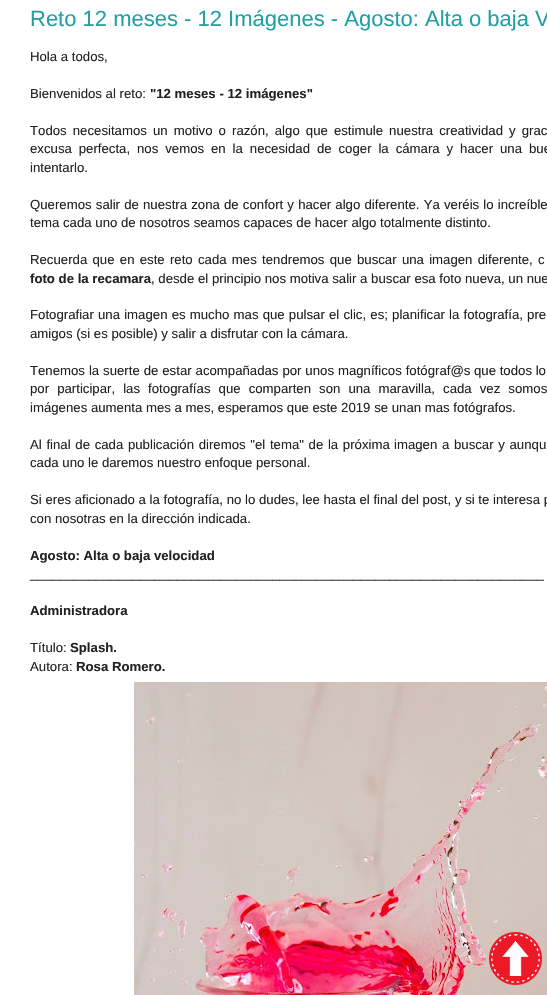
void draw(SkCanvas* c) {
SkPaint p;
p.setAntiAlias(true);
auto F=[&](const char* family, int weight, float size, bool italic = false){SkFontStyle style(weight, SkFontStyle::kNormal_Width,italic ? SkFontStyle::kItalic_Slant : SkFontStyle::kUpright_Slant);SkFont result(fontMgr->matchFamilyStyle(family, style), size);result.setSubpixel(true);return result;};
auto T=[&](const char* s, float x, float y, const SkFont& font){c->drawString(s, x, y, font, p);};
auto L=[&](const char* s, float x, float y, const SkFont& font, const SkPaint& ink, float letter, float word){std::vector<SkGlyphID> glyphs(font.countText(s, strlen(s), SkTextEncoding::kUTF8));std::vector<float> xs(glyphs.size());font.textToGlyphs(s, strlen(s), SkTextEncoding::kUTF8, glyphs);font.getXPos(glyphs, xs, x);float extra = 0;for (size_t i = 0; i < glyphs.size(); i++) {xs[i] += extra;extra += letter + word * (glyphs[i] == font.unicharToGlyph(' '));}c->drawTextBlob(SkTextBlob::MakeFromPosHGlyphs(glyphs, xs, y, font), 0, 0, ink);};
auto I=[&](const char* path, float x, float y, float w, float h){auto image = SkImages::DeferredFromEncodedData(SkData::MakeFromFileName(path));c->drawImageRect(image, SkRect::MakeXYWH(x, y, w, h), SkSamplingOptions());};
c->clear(0xffffffff);
auto f1 = F("Liberation Sans",400,22);
p.setColor(0xff249fa3);
T("Reto 12 meses - 12 Imágenes - Agosto: Alta o baja V",30,26,f1);
auto f2 = F("Liberation Sans",400,13.2);
p.setColor(0xff222222);
T("Hola a todos,",30,61,f2);
T("Bienvenidos al reto:",30,98,f2);
auto f3 = F("Liberation Sans",700,13.2);
T("\"12 meses - 12 imágenes\"",150,98,f3);
L("Todos necesitamos un motivo o razón, algo que estimule nuestra creatividad y grac",30,135,f2,p,0,2.4);
L("excusa perfecta, nos vemos en la necesidad de coger la cámara y hacer una bue",30,153,f2,p,0,3.25);
T("intentarlo.",30,172,f2);
L("Queremos salir de nuestra zona de confort y hacer algo diferente. Ya veréis lo increíble",30,209,f2,p,0,.5);
T("tema cada uno de nosotros seamos capaces de hacer algo totalmente distinto.",30,227,f2);
L("Recuerda que en este reto cada mes tendremos que buscar una imagen diferente, c",30,264,f2,p,0,1.6);
T("foto de la recamara",30,283,f3);
T(", desde el principio nos motiva salir a buscar esa foto nueva, un nue",151,283,f2);
L("Fotografiar una imagen es mucho mas que pulsar el clic, es; planificar la fotografía, pre",30,319,f2,p,0,.5);
T("amigos (si es posible) y salir a disfrutar con la cámara.",30,338,f2);
T("T",30,375,f2);
L("enemos la suerte de estar acompañadas por unos magníficos fotógraf@s",38,375,f2,p,0,.25);
T("que todos lo",474,375,f2);
L("por participar, las fotografías que comparten son una maravilla, cada vez somos",30,393,f2,p,0,4.4);
T("imágenes aumenta mes a mes, esperamos que este 2019 se unan mas fotógrafos.",30,412,f2);
L("Al final de cada publicación diremos \"el tema\" de la próxima",30,449,f2,p,0,1);
L("imagen a buscar y aunqu",394,449,f2,p,0,1);
T("cada uno le daremos nuestro enfoque personal.",30,467,f2);
T("Si eres aficionado a la fotografía, no lo dudes, lee hasta el final del post, y si te interesa p",30,504,f2);
T("con nosotras en la dirección indicada.",30,523,f2);
T("Agosto: Alta o baja velocidad",30,560,f3);
T("______________________________________________________________________",30,578,f2);
T("Administradora",30,615,f3);
T("Título:",30,652,f2);
T("Splash.",70,652,f3);
T("Autora:",30,671,f2);
T("Rosa Romero.",76,671,f3);
I("1.png",134,682,413,313);
I("2.png",489,932,53,53);
}
